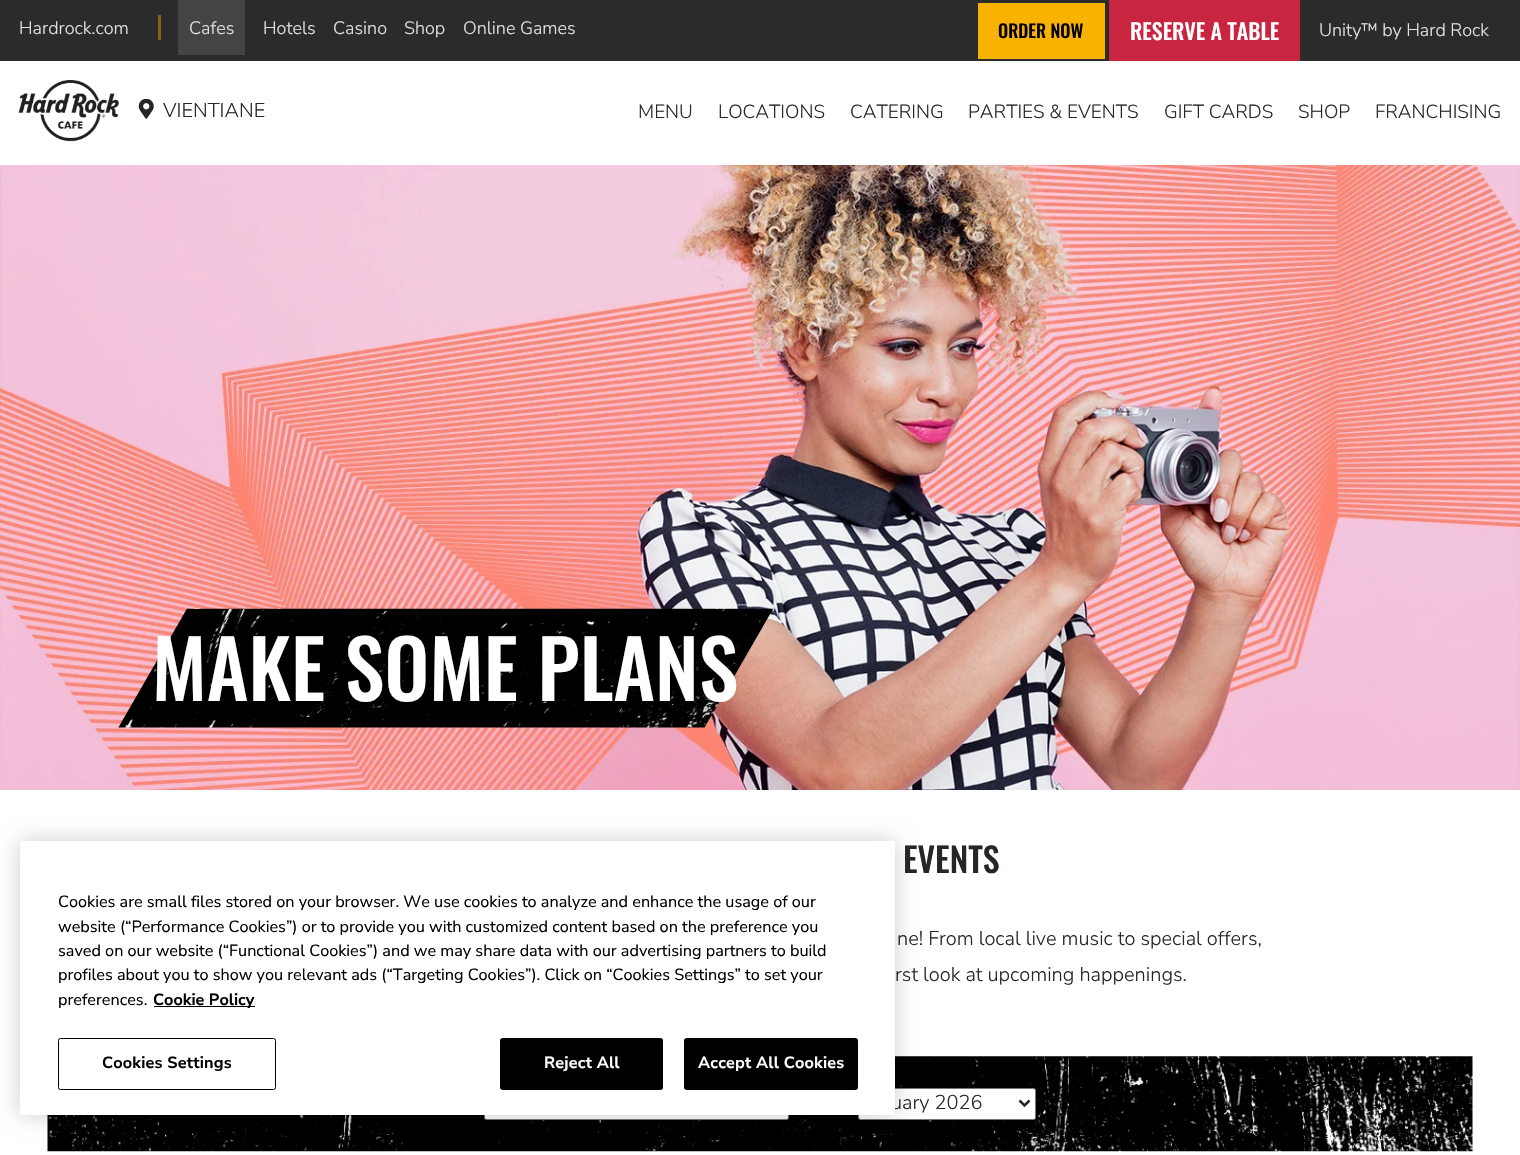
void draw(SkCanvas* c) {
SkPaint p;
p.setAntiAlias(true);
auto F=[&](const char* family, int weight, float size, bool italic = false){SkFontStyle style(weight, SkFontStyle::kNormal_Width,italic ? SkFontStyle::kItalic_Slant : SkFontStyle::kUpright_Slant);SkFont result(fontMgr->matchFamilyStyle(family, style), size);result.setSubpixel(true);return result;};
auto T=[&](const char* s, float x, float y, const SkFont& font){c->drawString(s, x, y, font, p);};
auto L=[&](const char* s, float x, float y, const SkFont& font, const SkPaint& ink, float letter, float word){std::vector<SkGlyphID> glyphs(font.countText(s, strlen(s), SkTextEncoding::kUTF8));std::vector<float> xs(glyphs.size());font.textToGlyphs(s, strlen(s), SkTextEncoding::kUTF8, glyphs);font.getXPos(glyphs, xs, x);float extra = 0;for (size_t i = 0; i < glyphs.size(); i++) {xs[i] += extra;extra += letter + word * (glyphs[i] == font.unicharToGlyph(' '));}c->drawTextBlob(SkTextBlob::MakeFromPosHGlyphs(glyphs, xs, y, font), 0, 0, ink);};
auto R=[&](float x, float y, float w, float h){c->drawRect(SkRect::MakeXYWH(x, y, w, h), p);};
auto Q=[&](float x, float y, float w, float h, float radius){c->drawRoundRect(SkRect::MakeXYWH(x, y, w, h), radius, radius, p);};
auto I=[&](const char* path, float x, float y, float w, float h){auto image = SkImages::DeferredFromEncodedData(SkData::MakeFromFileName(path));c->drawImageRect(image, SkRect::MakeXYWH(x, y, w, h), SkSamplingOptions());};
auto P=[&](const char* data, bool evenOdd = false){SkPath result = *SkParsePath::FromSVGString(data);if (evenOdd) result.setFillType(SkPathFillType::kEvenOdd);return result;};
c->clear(0xffffffff);
p.setColor(0xff2b2b2b);
R(0,0,1520,61);
auto f1 = F("Nunito Sans",300,18);
p.setColor(0xffe3e3e3);
T("Hardrock.com",19,34,f1);
p.setColor(0xff87601b);
R(158,15,3,25);
p.setColor(0xff444444);
R(178,0,67,55);
p.setColor(0xffe3e3e3);
T("Cafes",189,34,f1);
T("Hotels",263,34,f1);
T("Casino",333,34,f1);
T("Shop",404,34,f1);
T("Online Games",463,34,f1);
p.setColor(0xfff9b200);
R(978,3,127,56);
auto f2 = F("Oswald",500,18);
p.setColor(0xff000000);
T("ORDER NOW",998,38,f2);
p.setColor(0xffc82540);
R(1109,0,191,61);
auto f3 = F("Oswald",500,22);
p.setColor(0xffffffff);
T("RESERVE A TABLE",1130,40,f3);
p.setColor(0xffe3e3e3);
T("Unity™ by Hard Rock",1319,36,f1);
I("1.png",18,80,101,62);
I("2.png",138,99,16,20);
auto f4 = F("Nunito Sans",300,20);
p.setColor(0xff242628);
T("VIENTIANE",163,117,f4);
auto f5 = F("Nunito Sans",300,19);
T("MENU",638,118,f5);
T("LOCATIONS",718,118,f5);
T("CATERING",850,118,f5);
T("PARTIES & EVENTS",968,118,f5);
T("GIFT CARDS",1164,118,f5);
T("SHOP",1298,118,f5);
T("FRANCHISING",1375,118,f5);
I("3.png",0,165,1520,625);
I("4.png",118,608,655,120);
auto f6 = F("Oswald",500,80);
p.setColor(0xffffffff);
T("MAKE SOME PLANS",152,701,f6);
auto f7 = F("Oswald",500,34);
p.setColor(0xff242628);
T("EVENTS",903,873,f7);
T("ne! From local live music to special offers,",897,945,f4);
T("rst look at upcoming happenings.",895,981,f4);
I("5.png",47,1056,1426,96);
p.setColor(0xffffffff);
c->drawRoundRect(SkRect::MakeXYWH(484.5,1088.5,304,31),2,2,p);
p.setStroke(true);
p.setStrokeWidth(1);
p.setColor(0xff767676);
c->drawRoundRect(SkRect::MakeXYWH(484.5,1088.5,304,31),2,2,p);
p.setStroke(false);
p.setColor(0xffffffff);
c->drawRoundRect(SkRect::MakeXYWH(858.5,1088.5,177,31),2,2,p);
p.setStroke(true);
p.setColor(0xff767676);
c->drawRoundRect(SkRect::MakeXYWH(858.5,1088.5,177,31),2,2,p);
p.setStrokeWidth(2.5);
p.setColor(0xff242628);
c->drawPath(P("M1019.5 1100.5l5 5l5-5"),p);
p.setStroke(false);
T("uary 2026",891,1109,f4);
p.setColor(0x33000000);
p.setMaskFilter(SkMaskFilter::MakeBlur(kNormal_SkBlurStyle, 11));
c->drawRoundRect(SkRect::MakeXYWH(20,841,875,274),3,3,p);
p.setMaskFilter(nullptr);
p.setColor(0xffffffff);
Q(20,841,875,274,3);
auto f8 = F("Nunito Sans",400,16.25);
p.setColor(0xff000000);
T("Cookies are small files stored on your browser. We use cookies to analyze and enhance the usage of our",58,907,f8);
T("website (“Performance Cookies”) or to provide you with customized content based on the preference you",58,932,f8);
T("saved on our website (“Functional Cookies”) and we may share data with our advertising partners to build",58,956,f8);
T("profiles about you to show you relevant ads (“Targeting Cookies”). Click on “Cookies Settings” to set your",58,980,f8);
T("preferences.",58,1005,f8);
R(154,1006,101,1);
auto f9 = F("Nunito Sans",700,16.25);
T("Cookie Policy",153,1005,f9);
p.setStroke(true);
p.setStrokeWidth(1);
c->drawRoundRect(SkRect::MakeXYWH(58.5,1038.5,217,51),2,2,p);
p.setStroke(false);
L("Cookies Settings",102,1068,f9,p,.2,0);
c->drawRoundRect(SkRect::MakeXYWH(500.5,1038.5,162,51),2,2,p);
p.setStroke(true);
c->drawRoundRect(SkRect::MakeXYWH(500.5,1038.5,162,51),2,2,p);
p.setStroke(false);
p.setColor(0xffffffff);
L("Reject All",544,1068,f9,p,.2,0);
p.setColor(0xff000000);
c->drawRoundRect(SkRect::MakeXYWH(684.5,1038.5,173,51),2,2,p);
p.setStroke(true);
c->drawRoundRect(SkRect::MakeXYWH(684.5,1038.5,173,51),2,2,p);
p.setStroke(false);
p.setColor(0xffffffff);
L("Accept All Cookies",698,1068,f9,p,.2,0);
}
